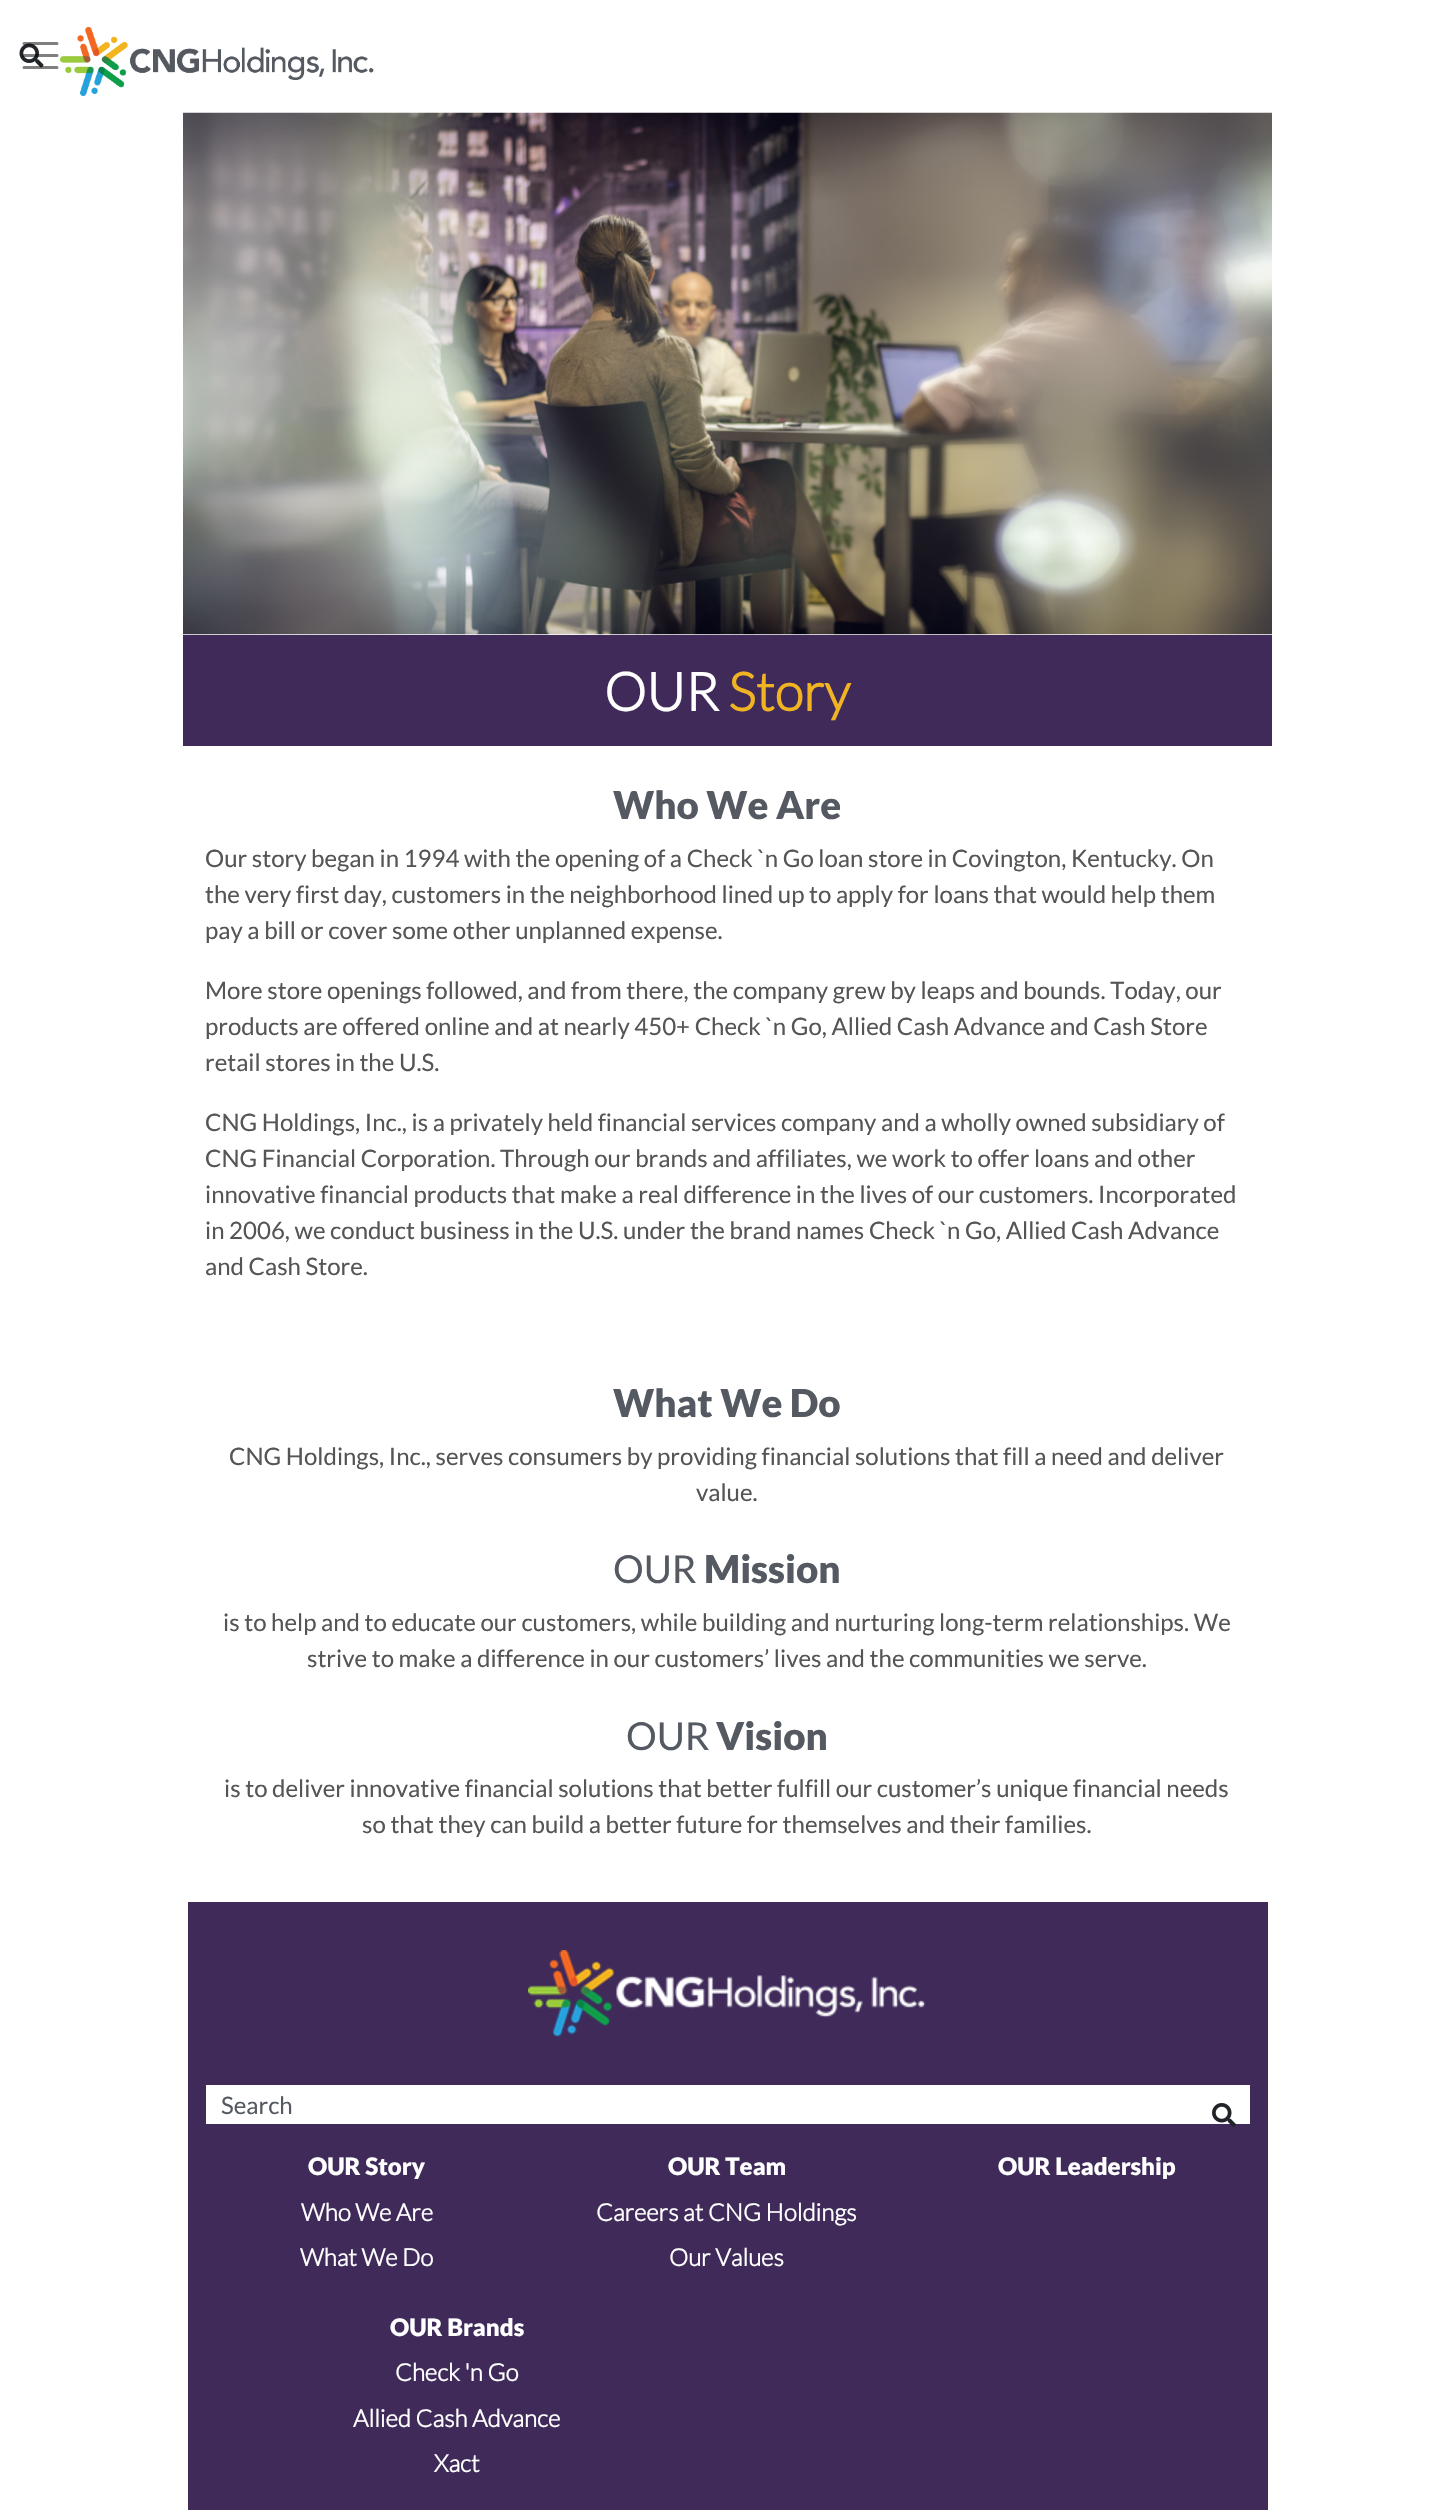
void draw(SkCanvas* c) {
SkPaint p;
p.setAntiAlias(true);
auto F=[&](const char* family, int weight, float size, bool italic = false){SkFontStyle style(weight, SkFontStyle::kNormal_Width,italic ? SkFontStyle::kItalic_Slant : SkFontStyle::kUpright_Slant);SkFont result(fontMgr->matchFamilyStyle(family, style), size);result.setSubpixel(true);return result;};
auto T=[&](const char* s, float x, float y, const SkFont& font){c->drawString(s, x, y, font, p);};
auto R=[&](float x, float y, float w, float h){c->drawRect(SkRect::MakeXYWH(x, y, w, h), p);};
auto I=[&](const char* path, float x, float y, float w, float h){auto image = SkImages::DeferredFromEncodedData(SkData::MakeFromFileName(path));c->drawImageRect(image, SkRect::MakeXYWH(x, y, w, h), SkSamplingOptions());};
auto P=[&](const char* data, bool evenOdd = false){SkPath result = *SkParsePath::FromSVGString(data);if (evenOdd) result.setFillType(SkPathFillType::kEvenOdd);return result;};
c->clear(0xffffffff);
I("1.png",19,43,25,25);
p.setStroke(true);
p.setStrokeWidth(3);
p.setStrokeCap(SkPaint::kRound_Cap);
p.setColor(0x80000000);
c->drawPath(P("M24 43.5h33m-33 12h33m-33 12h33"),p);
I("2.png",60,27,314,69);
I("3.png",183,112,1089,523);
p.setStroke(false);
p.setColor(0xff3f2a5a);
R(183,635,1089,111);
auto f1 = F("Lato",700,53);
p.setColor(0xffffffff);
T("OUR",604,711,f1);
p.setColor(0xfff0b322);
T("Story",728,711,f1);
auto f2 = F("Lato",900,38.5);
p.setColor(0xff555a62);
T("Who We Are",613,819,f2);
auto f3 = F("Lato",400,24);
p.setColor(0xff555555);
T("Our story began in 1994 with the opening of a Check `n Go loan store in Covington, Kentucky. On",205,867,f3);
T("the very first day, customers in the neighborhood lined up to apply for loans that would help them",205,903,f3);
T("pay a bill or cover some other unplanned expense.",205,939,f3);
T("More store openings followed, and from there, the company grew by leaps and bounds. Today, our",205,999,f3);
T("products are offered online and at nearly 450+ Check `n Go, Allied Cash Advance and Cash Store",205,1035,f3);
T("retail stores in the U.S.",205,1071,f3);
T("CNG Holdings, Inc., is a privately held financial services company and a wholly owned subsidiary of",205,1131,f3);
T("CNG Financial Corporation. Through our brands and affiliates, we work to offer loans and other",205,1167,f3);
T("innovative financial products that make a real difference in the lives of our customers. Incorporated",205,1203,f3);
T("in 2006, we conduct business in the U.S. under the brand names Check `n Go, Allied Cash Advance",205,1239,f3);
T("and Cash Store.",205,1275,f3);
p.setColor(0xff555a62);
T("What We Do",613,1417,f2);
p.setColor(0xff555555);
T("CNG Holdings, Inc., serves consumers by providing financial solutions that fill a need and deliver",229,1465,f3);
T("value.",696,1501,f3);
auto f4 = F("Lato",400,38.5);
p.setColor(0xff555a62);
T("OUR",613,1583,f4);
T("Mission",704,1583,f2);
p.setColor(0xff555555);
T("is to help and to educate our customers, while building and nurturing long-term relationships. We",223,1631,f3);
T("strive to make a difference in our customers’ lives and the communities we serve.",307,1667,f3);
p.setColor(0xff555a62);
T("OUR",626,1750,f4);
T("Vision",716,1750,f2);
p.setColor(0xff555555);
T("is to deliver innovative financial solutions that better fulfill our customer’s unique financial needs",224,1797,f3);
T("so that they can build a better future for themselves and their families.",362,1833,f3);
p.setColor(0xff3f2a5a);
R(188,1902,1080,608);
I("4.png",528,1950,397,87);
p.setColor(0xffffffff);
c->drawRect(SkRect::MakeXYWH(207,2086,1042,37),p);
p.setStroke(true);
p.setStrokeWidth(2);
p.setStrokeCap(SkPaint::kButt_Cap);
c->drawRect(SkRect::MakeXYWH(207,2086,1042,37),p);
p.setStroke(false);
p.setColor(0xff555a62);
T("Search",221,2114,f3);
I("5.png",1212,2103,24,24);
auto f5 = F("Lato",900,24);
p.setColor(0xffffffff);
T("OUR Story",308,2175,f5);
auto f6 = F("Lato",700,24);
T("Who We Are",301,2221,f6);
T("What We Do",300,2266,f6);
T("OUR Team",668,2175,f5);
T("Careers at CNG Holdings",596,2221,f6);
T("Our Values",669,2266,f6);
T("OUR Leadership",998,2175,f5);
T("OUR Brands",390,2336,f5);
T("Check 'n Go",395,2381,f6);
T("Allied Cash Advance",353,2427,f6);
T("Xact",434,2472,f6);
}
